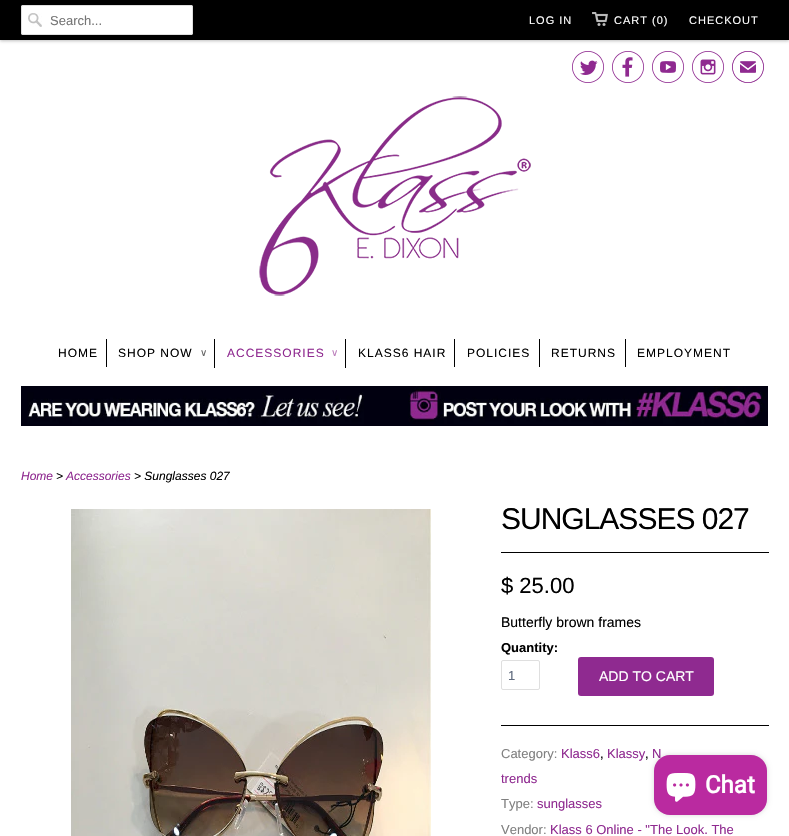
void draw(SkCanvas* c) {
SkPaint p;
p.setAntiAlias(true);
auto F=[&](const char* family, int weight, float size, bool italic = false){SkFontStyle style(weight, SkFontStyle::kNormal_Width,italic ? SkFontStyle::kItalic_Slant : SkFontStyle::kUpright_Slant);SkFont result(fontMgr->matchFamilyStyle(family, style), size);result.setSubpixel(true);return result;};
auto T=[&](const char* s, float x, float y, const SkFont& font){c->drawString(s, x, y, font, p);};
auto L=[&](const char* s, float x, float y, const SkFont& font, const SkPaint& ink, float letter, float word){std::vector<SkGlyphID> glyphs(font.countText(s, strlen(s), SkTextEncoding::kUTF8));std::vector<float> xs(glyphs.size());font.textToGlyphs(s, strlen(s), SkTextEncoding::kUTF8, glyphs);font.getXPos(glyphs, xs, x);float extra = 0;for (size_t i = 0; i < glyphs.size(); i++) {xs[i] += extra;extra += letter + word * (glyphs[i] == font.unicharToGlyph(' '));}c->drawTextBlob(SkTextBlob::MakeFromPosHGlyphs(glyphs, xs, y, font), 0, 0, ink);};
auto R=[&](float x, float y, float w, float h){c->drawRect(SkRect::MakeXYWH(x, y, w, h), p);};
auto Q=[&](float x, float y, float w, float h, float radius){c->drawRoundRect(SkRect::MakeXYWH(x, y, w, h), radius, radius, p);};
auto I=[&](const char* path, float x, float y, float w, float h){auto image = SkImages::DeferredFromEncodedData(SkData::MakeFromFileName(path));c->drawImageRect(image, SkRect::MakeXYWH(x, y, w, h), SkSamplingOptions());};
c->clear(0xffffffff);
p.setColor(0x40000000);
p.setMaskFilter(SkMaskFilter::MakeBlur(kNormal_SkBlurStyle, 1.5));
c->drawRect(SkRect::MakeXYWH(0,1,789,40),p);
p.setMaskFilter(nullptr);
p.setColor(0xff000000);
R(0,0,789,40);
p.setColor(0xffffffff);
Q(21,5,172,30,2);
I("1.png",28,13,14,14);
p.setStroke(true);
p.setStrokeWidth(1);
p.setColor(0xffdfdfdf);
c->drawRoundRect(SkRect::MakeXYWH(21.5,5.5,171,29),1.5,1.5,p);
auto f1 = F("Liberation Sans",400,13);
p.setStroke(false);
p.setColor(0xff757575);
T("Search...",50,25,f1);
auto f2 = F("Liberation Sans",400,11);
p.setColor(0xffffffff);
L("LOG IN",529,24,f2,p,1,0);
I("2.png",592,12,16,14);
L("CART (0)",614,24,f2,p,1,0);
L("CHECKOUT",689,24,f2,p,1,0);
I("3.png",572,51,32,32);
I("4.png",612,51,32,32);
I("5.png",652,51,32,32);
I("6.png",692,51,32,32);
auto f3 = F("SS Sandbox",400,32);
p.setColor(0xff8f2a90);
T("✉",732,83,f3);
I("7.png",259,96,272,200);
p.setColor(0xff000000);
R(106,339,1,28);
auto f4 = F("Liberation Sans",400,12);
L("HOME",58,357,f4,p,1,0);
R(214,339,1,29);
L("SHOP NOW",118,357,f4,p,1,0);
auto f5 = F("DejaVu Sans",400,10);
p.setColor(0xff666666);
L("∨",200,356,f5,p,1,0);
p.setColor(0xff000000);
R(345,339,1,29);
p.setColor(0xff8f2a90);
L("ACCESSORIES",227,357,f4,p,1,0);
p.setColor(0xffbc7fbc);
L("∨",331,356,f5,p,1,0);
p.setColor(0xff000000);
R(454,339,1,28);
L("KLASS6 HAIR",358,357,f4,p,1,0);
R(539,339,1,28);
L("POLICIES",467,357,f4,p,1,0);
R(625,339,1,28);
L("RETURNS",551,357,f4,p,1,0);
L("EMPLOYMENT",637,357,f4,p,1,0);
I("8.png",21,386,747,40);
auto f6 = F("Liberation Sans",400,12,true);
p.setColor(0xff8f2a90);
T("Home",21,480,f6);
p.setColor(0xff000000);
T(">",56,480,f6);
p.setColor(0xff8f2a90);
T("Accessories",66,480,f6);
p.setColor(0xff000000);
T("> Sunglasses 027",134,480,f6);
I("9.png",71,509,360,327);
R(501,552,268,1);
auto f7 = F("Liberation Sans",400,30);
L("SUNGLASSES 027",501,529,f7,p,-1,0);
auto f8 = F("Liberation Sans",400,22);
T("$ 25.00",501,593,f8);
auto f9 = F("Liberation Sans",400,14);
T("Butterfly brown frames",501,627,f9);
auto f10 = F("Liberation Sans",700,13);
T("Quantity:",501,652,f10);
p.setStroke(true);
p.setColor(0xffdfdfdf);
c->drawRoundRect(SkRect::MakeXYWH(501.5,660.5,38,29),1.5,1.5,p);
p.setStroke(false);
p.setColor(0xff5f6a7d);
T("1",508,680,f1);
p.setColor(0xff8f2a90);
Q(578,657,136,39,3);
p.setColor(0xffffffff);
T("ADD TO CART",599,681,f9);
p.setColor(0xff000000);
R(501,725,268,1);
p.setColor(0xff808080);
T("Category:",501,758,f1);
p.setColor(0xff8f2a90);
T("Klass6",561,758,f1);
p.setColor(0xff000000);
T(",",600,758,f1);
p.setColor(0xff8f2a90);
T("Klassy",607,758,f1);
p.setColor(0xff000000);
T(",",645,758,f1);
p.setColor(0xff8f2a90);
T("N",652,758,f1);
T("trends",501,783,f1);
p.setColor(0xff808080);
T("Type:",501,808,f1);
p.setColor(0xff8f2a90);
T("sunglasses",537,808,f1);
p.setColor(0xff808080);
T("Vendor:",501,834,f1);
p.setColor(0xff8f2a90);
T("Klass 6 Online - \"The Look. The",550,834,f1);
p.setColor(0x26000000);
p.setMaskFilter(SkMaskFilter::MakeBlur(kNormal_SkBlurStyle, 2.5));
c->drawRoundRect(SkRect::MakeXYWH(654,755,113,60),16,16,p);
p.setMaskFilter(nullptr);
p.setColor(0xffba2aa0);
Q(654,755,113,60,16);
I("10.png",666,773,30,29);
auto f11 = F("Roboto",700,24);
p.setColor(0xffffffff);
T("Chat",705,793,f11);
}
